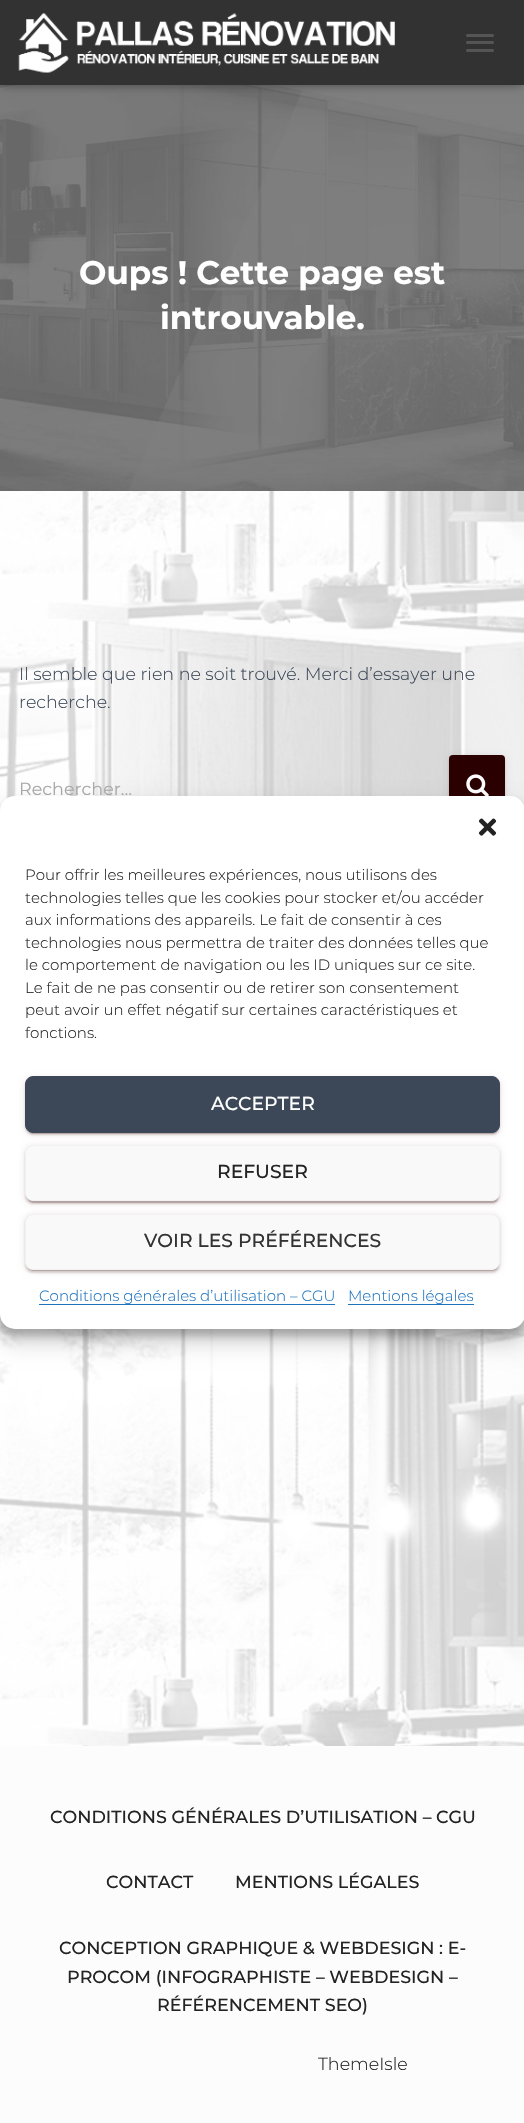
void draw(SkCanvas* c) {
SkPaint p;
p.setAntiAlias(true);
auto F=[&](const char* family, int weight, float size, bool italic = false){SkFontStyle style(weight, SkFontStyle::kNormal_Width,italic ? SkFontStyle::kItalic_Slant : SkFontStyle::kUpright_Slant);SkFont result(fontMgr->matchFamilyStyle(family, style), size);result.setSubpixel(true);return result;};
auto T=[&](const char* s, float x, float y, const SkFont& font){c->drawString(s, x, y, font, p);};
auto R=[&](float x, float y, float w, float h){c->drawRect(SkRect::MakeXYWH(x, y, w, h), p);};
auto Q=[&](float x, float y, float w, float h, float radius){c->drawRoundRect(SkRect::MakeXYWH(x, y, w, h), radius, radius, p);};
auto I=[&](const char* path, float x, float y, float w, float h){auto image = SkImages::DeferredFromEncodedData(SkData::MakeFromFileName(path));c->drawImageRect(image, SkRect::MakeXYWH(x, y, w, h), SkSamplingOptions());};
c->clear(0xffffffff);
I("2.png",0,85,524,406);
p.setColor(0x1a000000);
p.setMaskFilter(SkMaskFilter::MakeBlur(kNormal_SkBlurStyle, 3));
c->drawRect(SkRect::MakeXYWH(3,8,520,80),p);
p.setMaskFilter(nullptr);
p.setColor(0x1f000000);
p.setMaskFilter(SkMaskFilter::MakeBlur(kNormal_SkBlurStyle, 6));
c->drawRect(SkRect::MakeXYWH(0,1,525,85),p);
p.setMaskFilter(nullptr);
p.setColor(0x6b000000);
p.setMaskFilter(SkMaskFilter::MakeBlur(kNormal_SkBlurStyle, 6));
c->drawRect(SkRect::MakeXYWH(8,9,510,70),p);
p.setMaskFilter(nullptr);
p.setColor(0xff323232);
R(0,0,524,85);
I("1.png",18,13,377,60);
p.setColor(0xff555555);
Q(466,34,28,3,1.5);
Q(466,41,28,3,1.5);
Q(466,49,28,3,1.5);
auto f1 = F("Montserrat",700,32.5);
p.setColor(0xffffffff);
T("Oups ! Cette page est",79,284,f1);
T("introuvable.",160,329,f1);
p.setColor(0x1f000000);
p.setMaskFilter(SkMaskFilter::MakeBlur(kNormal_SkBlurStyle, 19));
c->drawRect(SkRect::MakeXYWH(-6,493,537,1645),p);
p.setMaskFilter(nullptr);
I("3.png",0,491,524,1255);
auto f2 = F("Montserrat",300,17.5);
p.setColor(0xff3c4858);
T("Il semble que rien ne soit trouvé. Merci d’essayer une",19,680,f2);
T("recherche.",19,708,f2);
auto f3 = F("Montserrat",400,17.5);
p.setColor(0xffaaaaaa);
T("Rechercher…",19,795,f3);
p.setColor(0x1f2b0000);
p.setMaskFilter(SkMaskFilter::MakeBlur(kNormal_SkBlurStyle, 3));
c->drawRoundRect(SkRect::MakeXYWH(449,756,56,60),4,4,p);
p.setMaskFilter(nullptr);
p.setColor(0x242b0000);
p.setMaskFilter(SkMaskFilter::MakeBlur(kNormal_SkBlurStyle, 1));
c->drawRoundRect(SkRect::MakeXYWH(449,758,56,60),4,4,p);
p.setMaskFilter(nullptr);
p.setColor(0xff2b0000);
Q(449,755,56,60,4);
I("4.png",466,774,23,22);
p.setColor(0xfffcfcfc);
R(0,1746,524,377);
auto f4 = F("Montserrat",500,17.5);
p.setColor(0xff232323);
T("CONDITIONS GÉNÉRALES D’UTILISATION – CGU",50,1823,f4);
T("CONTACT",106,1888,f4);
T("MENTIONS LÉGALES",235,1888,f4);
T("CONCEPTION GRAPHIQUE & WEBDESIGN : E-",59,1954,f4);
T("PROCOM (INFOGRAPHISTE – WEBDESIGN –",67,1983,f4);
T("RÉFÉRENCEMENT SEO)",157,2011,f4);
T("ThemeIsle",318,2070,f2);
p.setColor(0x3b000000);
p.setMaskFilter(SkMaskFilter::MakeBlur(kNormal_SkBlurStyle, 4));
c->drawRoundRect(SkRect::MakeXYWH(0,804,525,532),15,15,p);
p.setMaskFilter(nullptr);
p.setColor(0x30000000);
p.setMaskFilter(SkMaskFilter::MakeBlur(kNormal_SkBlurStyle, 12.5));
c->drawRoundRect(SkRect::MakeXYWH(0,809,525,532),15,15,p);
p.setMaskFilter(nullptr);
p.setColor(0xffffffff);
Q(0,796,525,533,15);
I("5.png",478,818,19,18);
auto f5 = F("Montserrat",300,15);
p.setColor(0xff232323);
T("Pour offrir les meilleures expériences, nous utilisons des",25,880,f5);
T("technologies telles que les cookies pour stocker et/ou accéder",25,903,f5);
T("aux informations des appareils. Le fait de consentir à ces",25,925,f5);
T("technologies nous permettra de traiter des données telles que",25,948,f5);
T("le comportement de navigation ou les ID uniques sur ce site.",25,970,f5);
T("Le fait de ne pas consentir ou de retirer son consentement",25,993,f5);
T("peut avoir un effet négatif sur certaines caractéristiques et",25,1015,f5);
T("fonctions.",25,1038,f5);
p.setColor(0x1f2b0000);
p.setMaskFilter(SkMaskFilter::MakeBlur(kNormal_SkBlurStyle, 3));
c->drawRoundRect(SkRect::MakeXYWH(25,1078,475,56),8,8,p);
p.setMaskFilter(nullptr);
p.setColor(0x332b0000);
p.setMaskFilter(SkMaskFilter::MakeBlur(kNormal_SkBlurStyle, .5));
c->drawRoundRect(SkRect::MakeXYWH(28,1083,470,51),5,5,p);
p.setMaskFilter(nullptr);
p.setColor(0x242b0000);
p.setMaskFilter(SkMaskFilter::MakeBlur(kNormal_SkBlurStyle, 1));
c->drawRoundRect(SkRect::MakeXYWH(25,1079,475,56),8,8,p);
p.setMaskFilter(nullptr);
p.setColor(0xff3c4858);
c->drawRoundRect(SkRect::MakeXYWH(25.5,1076.5,474,56),7.5,7.5,p);
p.setStroke(true);
p.setStrokeWidth(1);
c->drawRoundRect(SkRect::MakeXYWH(25.5,1076.5,474,56),7.5,7.5,p);
auto f6 = F("Montserrat",500,18.75);
p.setStroke(false);
p.setColor(0xffffffff);
T("ACCEPTER",211,1110,f6);
p.setColor(0x1f2b0000);
p.setMaskFilter(SkMaskFilter::MakeBlur(kNormal_SkBlurStyle, 3));
c->drawRoundRect(SkRect::MakeXYWH(25,1146,475,57),8,8,p);
p.setMaskFilter(nullptr);
p.setColor(0x332b0000);
p.setMaskFilter(SkMaskFilter::MakeBlur(kNormal_SkBlurStyle, .5));
c->drawRoundRect(SkRect::MakeXYWH(28,1151,470,52),5,5,p);
p.setMaskFilter(nullptr);
p.setColor(0x242b0000);
p.setMaskFilter(SkMaskFilter::MakeBlur(kNormal_SkBlurStyle, 1));
c->drawRoundRect(SkRect::MakeXYWH(25,1148,475,56),8,8,p);
p.setMaskFilter(nullptr);
p.setColor(0xfff9f9f9);
c->drawRoundRect(SkRect::MakeXYWH(25.5,1145.5,474,55),7.5,7.5,p);
p.setStroke(true);
p.setColor(0xfff2f2f2);
c->drawRoundRect(SkRect::MakeXYWH(25.5,1145.5,474,55),7.5,7.5,p);
p.setStroke(false);
p.setColor(0xff232323);
T("REFUSER",217,1178,f6);
p.setColor(0x1f2b0000);
p.setMaskFilter(SkMaskFilter::MakeBlur(kNormal_SkBlurStyle, 3));
c->drawRoundRect(SkRect::MakeXYWH(25,1215,475,56),8,8,p);
p.setMaskFilter(nullptr);
p.setColor(0x332b0000);
p.setMaskFilter(SkMaskFilter::MakeBlur(kNormal_SkBlurStyle, .5));
c->drawRoundRect(SkRect::MakeXYWH(28,1220,470,51),5,5,p);
p.setMaskFilter(nullptr);
p.setColor(0x242b0000);
p.setMaskFilter(SkMaskFilter::MakeBlur(kNormal_SkBlurStyle, 1));
c->drawRoundRect(SkRect::MakeXYWH(25,1216,475,57),8,8,p);
p.setMaskFilter(nullptr);
p.setColor(0xfff9f9f9);
c->drawRoundRect(SkRect::MakeXYWH(25.5,1214.5,474,55),7.5,7.5,p);
p.setStroke(true);
p.setColor(0xfff2f2f2);
c->drawRoundRect(SkRect::MakeXYWH(25.5,1214.5,474,55),7.5,7.5,p);
p.setStroke(false);
p.setColor(0xff333333);
T("VOIR LES PRÉFÉRENCES",144,1247,f6);
p.setColor(0xff1e73be);
T("Conditions générales d’utilisation – CGU",39,1301,f5);
R(39,1304,296,1);
T("Mentions légales",348,1301,f5);
R(348,1304,126,1);
}
